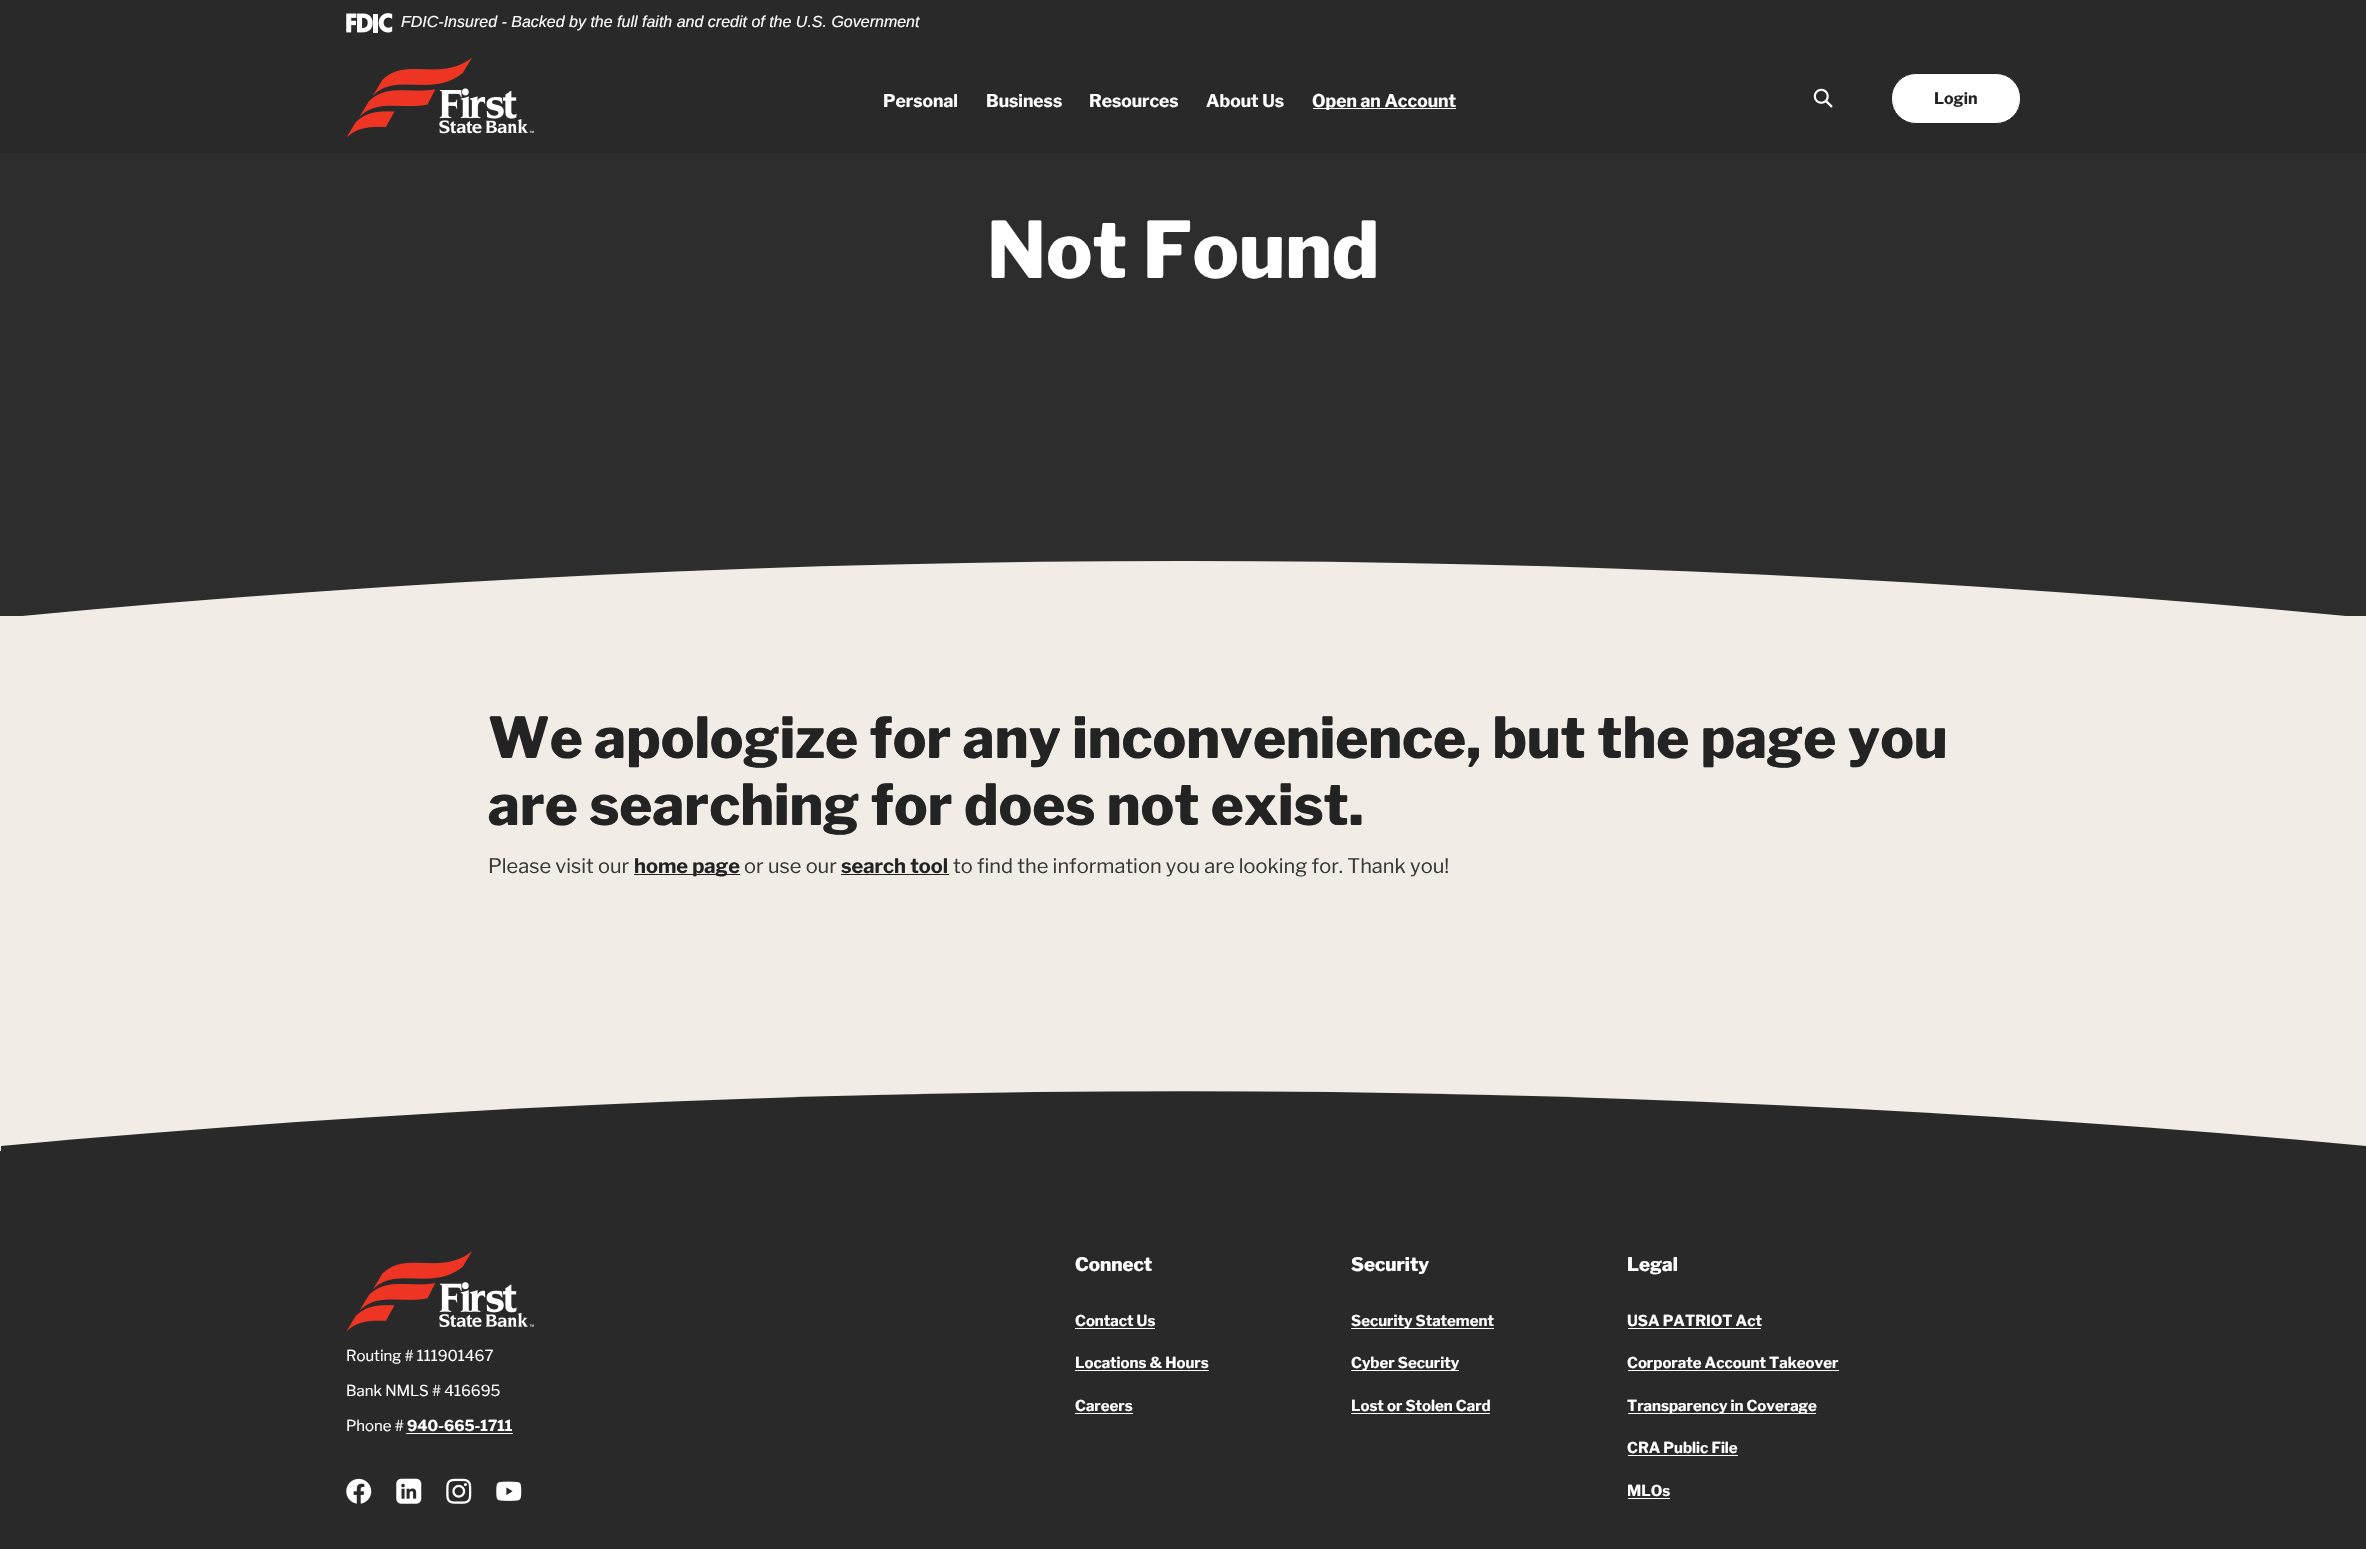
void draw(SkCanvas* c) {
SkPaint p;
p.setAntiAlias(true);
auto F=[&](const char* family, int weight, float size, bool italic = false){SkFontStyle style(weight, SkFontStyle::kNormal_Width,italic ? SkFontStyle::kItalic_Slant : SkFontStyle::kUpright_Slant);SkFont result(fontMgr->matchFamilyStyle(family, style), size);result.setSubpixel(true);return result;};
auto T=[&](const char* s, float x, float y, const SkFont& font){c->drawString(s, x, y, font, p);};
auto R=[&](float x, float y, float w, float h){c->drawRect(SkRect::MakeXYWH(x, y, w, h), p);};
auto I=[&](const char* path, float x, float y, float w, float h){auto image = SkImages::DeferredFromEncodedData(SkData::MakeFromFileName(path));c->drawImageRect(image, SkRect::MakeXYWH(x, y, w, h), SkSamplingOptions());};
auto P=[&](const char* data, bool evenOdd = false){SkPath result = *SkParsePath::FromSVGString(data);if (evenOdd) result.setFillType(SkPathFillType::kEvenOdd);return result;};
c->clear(0xfff2ece7);
p.setColor(0xff292929);
R(0,0,2366,153);
I("1.png",346,13,47,20);
auto f1 = F("Liberation Sans",400,16,true);
p.setColor(0xffffffff);
T("FDIC-Insured - Backed by the full faith and credit of the U.S. Government",401,27,f1);
I("2.png",346,58,188,80);
auto f2 = F("Libre Franklin",700,17.5);
T("Personal",883,107,f2);
T("Business",986,107,f2);
T("Resources",1089,107,f2);
T("About Us",1206,107,f2);
R(1313,108,143,1);
T("Open an Account",1312,107,f2);
I("3.png",1813,88,20,20);
c->drawRoundRect(SkRect::MakeXYWH(1891.5,73.5,129,50),24.5,24.5,p);
p.setStroke(true);
p.setStrokeWidth(1);
p.setColor(0xff232323);
c->drawRoundRect(SkRect::MakeXYWH(1891.5,73.5,129,50),24.5,24.5,p);
auto f3 = F("Libre Franklin",700,16);
p.setStroke(false);
T("Login",1934,104,f3);
p.setColor(0xff2d2d2d);
R(0,153,2366,463);
auto f4 = F("Libre Franklin",800,77.5);
p.setColor(0xffffffff);
T("Not Found",987,278,f4);
c->save();
c->clipRect(SkRect::MakeXYWH(1,505,2365,111));
p.setColor(0xfff2ece7);
c->drawPath(P("M1 618c788-76 1577-76 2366 0z"),p);
c->restore();
auto f5 = F("Libre Franklin",800,56.25);
p.setColor(0xff232323);
T("We apologize for any inconvenience, but the page you",488,758,f5);
T("are searching for does not exist.",488,825,f5);
auto f6 = F("Libre Franklin",400,20);
p.setColor(0xff383838);
T("Please visit our",488,873,f6);
p.setColor(0xff232323);
R(634,874,106,1);
auto f7 = F("Libre Franklin",700,20);
T("home page",634,873,f7);
p.setColor(0xff383838);
T("or use our",744,873,f6);
p.setColor(0xff232323);
T("search tool",841,873,f7);
R(841,874,108,1);
p.setColor(0xff383838);
T("to find the information you are looking for. Thank you!",953,873,f6);
p.setColor(0xff292929);
R(0,1151,2366,398);
c->drawPath(P("M1 1152v-6c788-73 1577-73 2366 0v6z"),p);
I("4.png",346,1251,188,81);
auto f8 = F("Libre Franklin",400,15);
p.setColor(0xffffffff);
T("Routing # 111901467",346,1361,f8);
T("Bank NMLS # 416695",346,1396,f8);
T("Phone #",346,1431,f8);
auto f9 = F("Libre Franklin",700,15);
T("940-665-1711",407,1431,f9);
R(406,1433,107,1);
I("5.png",346,1478,26,26);
I("6.png",396,1478,26,26);
I("7.png",446,1478,26,26);
I("8.png",496,1481,26,20);
auto f10 = F("Libre Franklin",800,18.75);
T("Connect",1075,1271,f10);
T("Contact Us",1075,1326,f9);
R(1075,1328,80,1);
T("Locations & Hours",1075,1368,f9);
R(1075,1370,134,1);
T("Careers",1075,1411,f9);
R(1075,1413,58,1);
T("Security",1351,1271,f10);
R(1351,1328,143,1);
T("Security Statement",1351,1326,f9);
R(1351,1370,108,1);
T("Cyber Security",1351,1368,f9);
T("Lost or Stolen Card",1351,1411,f9);
R(1351,1413,139,1);
T("Legal",1627,1271,f10);
T("USA PATRIOT Act",1627,1326,f9);
R(1628,1328,133,1);
R(1628,1370,211,1);
T("Corporate Account Takeover",1627,1368,f9);
R(1628,1413,188,1);
T("Transparency in Coverage",1627,1411,f9);
T("CRA Public File",1627,1453,f9);
R(1628,1455,110,1);
T("MLOs",1627,1496,f9);
R(1628,1498,42,1);
}
